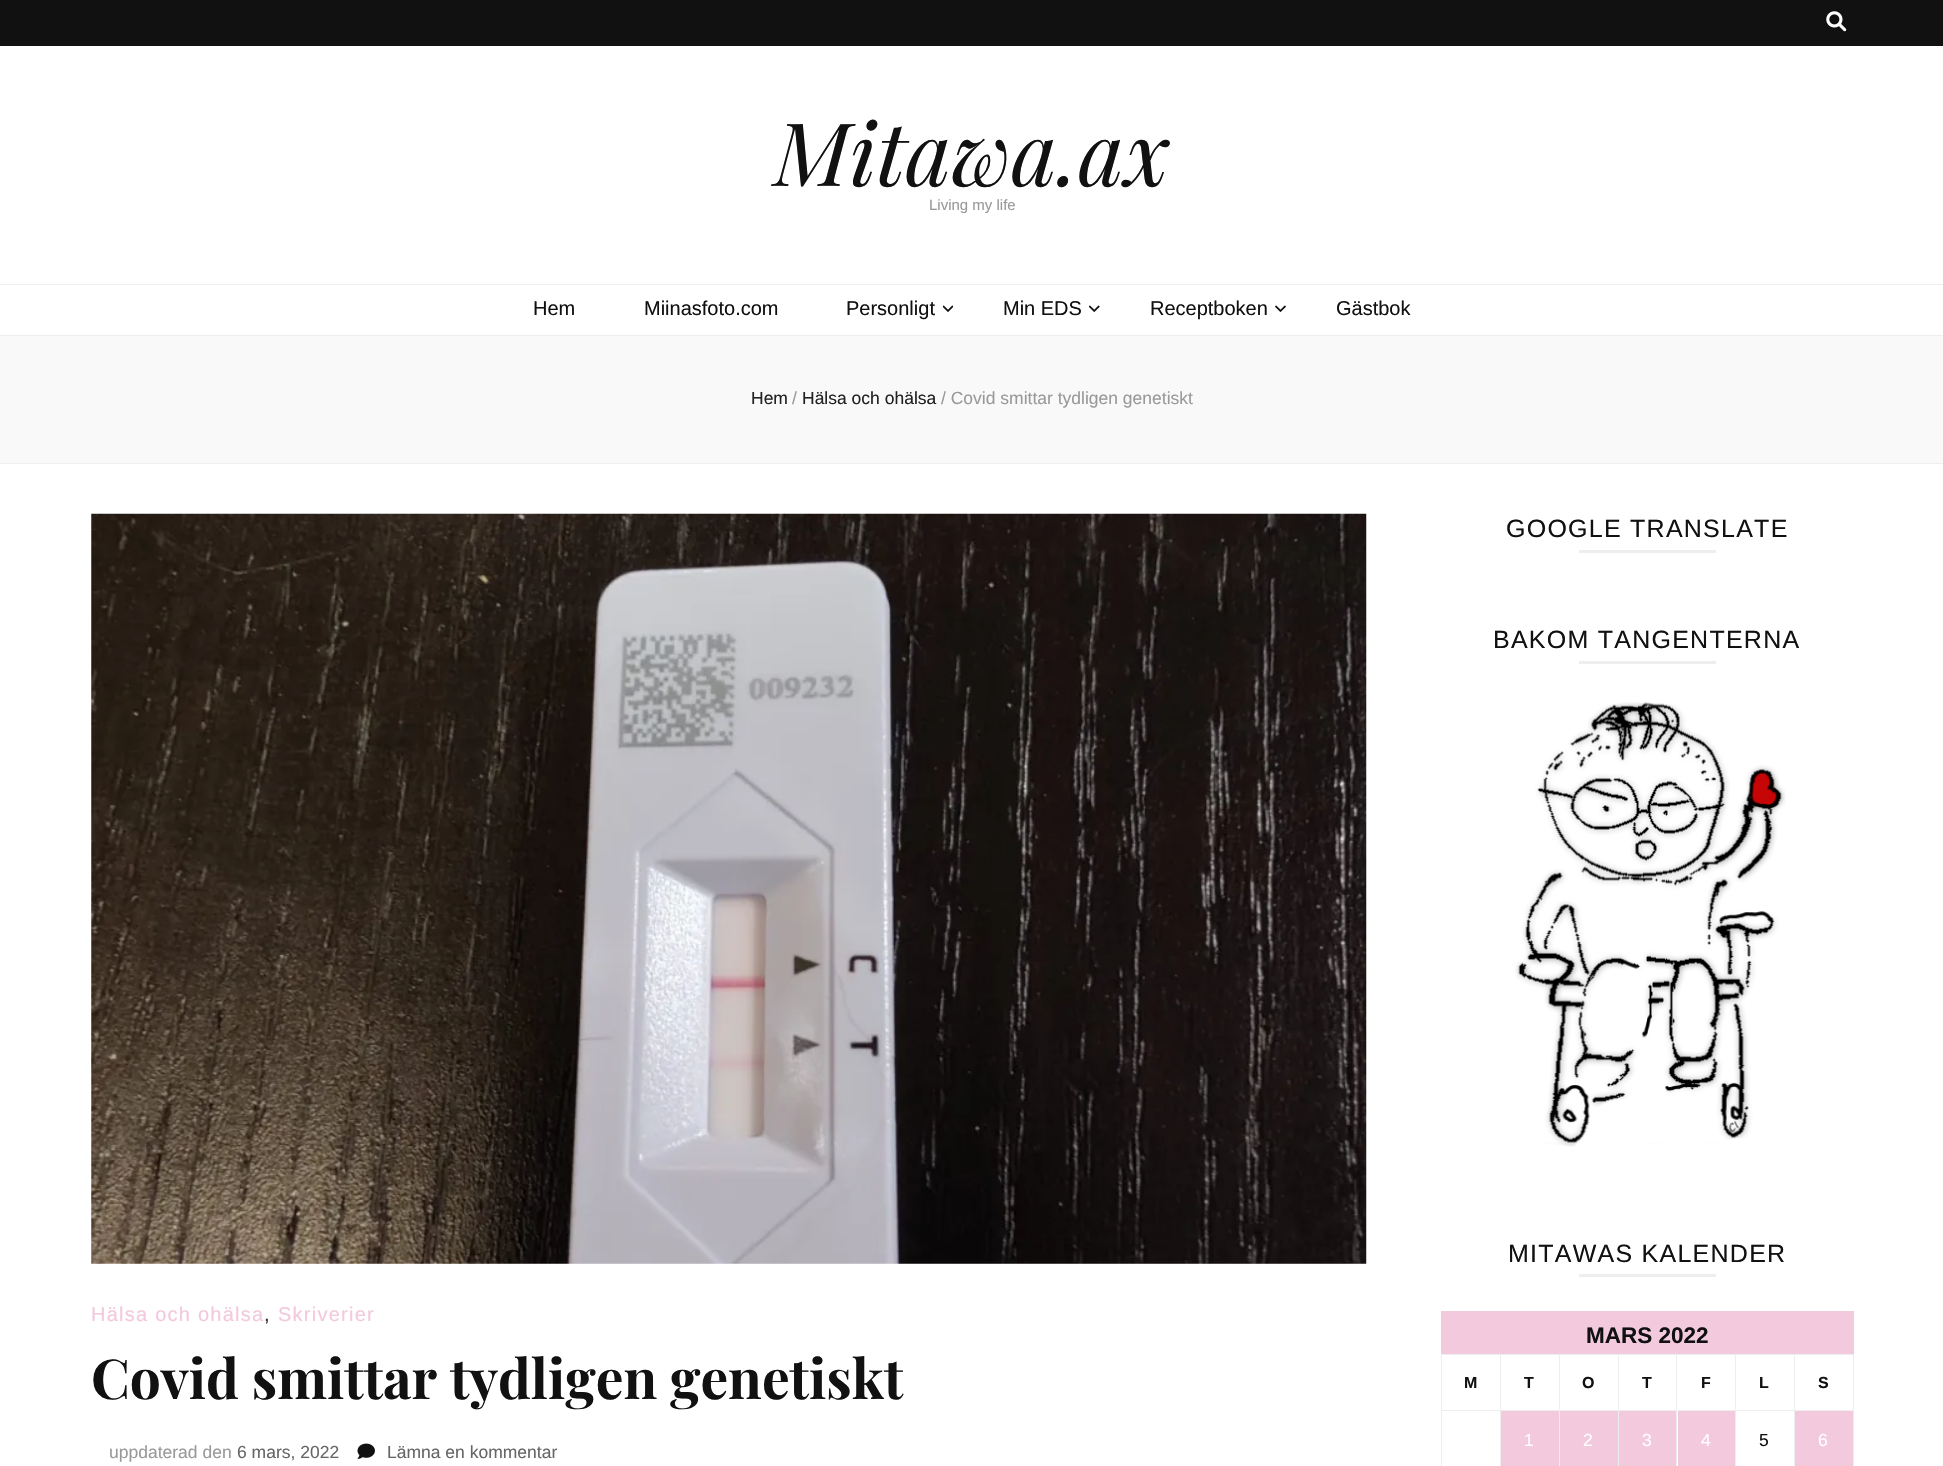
void draw(SkCanvas* c) {
SkPaint p;
p.setAntiAlias(true);
auto F=[&](const char* family, int weight, float size, bool italic = false){SkFontStyle style(weight, SkFontStyle::kNormal_Width,italic ? SkFontStyle::kItalic_Slant : SkFontStyle::kUpright_Slant);SkFont result(fontMgr->matchFamilyStyle(family, style), size);result.setSubpixel(true);return result;};
auto T=[&](const char* s, float x, float y, const SkFont& font){c->drawString(s, x, y, font, p);};
auto L=[&](const char* s, float x, float y, const SkFont& font, const SkPaint& ink, float letter, float word){std::vector<SkGlyphID> glyphs(font.countText(s, strlen(s), SkTextEncoding::kUTF8));std::vector<float> xs(glyphs.size());font.textToGlyphs(s, strlen(s), SkTextEncoding::kUTF8, glyphs);font.getXPos(glyphs, xs, x);float extra = 0;for (size_t i = 0; i < glyphs.size(); i++) {xs[i] += extra;extra += letter + word * (glyphs[i] == font.unicharToGlyph(' '));}c->drawTextBlob(SkTextBlob::MakeFromPosHGlyphs(glyphs, xs, y, font), 0, 0, ink);};
auto R=[&](float x, float y, float w, float h){c->drawRect(SkRect::MakeXYWH(x, y, w, h), p);};
auto I=[&](const char* path, float x, float y, float w, float h){auto image = SkImages::DeferredFromEncodedData(SkData::MakeFromFileName(path));c->drawImageRect(image, SkRect::MakeXYWH(x, y, w, h), SkSamplingOptions());};
c->clear(0xffffffff);
p.setColor(0xff111111);
R(0,0,1943,46);
I("1.png",1826,11,21,21);
auto f1 = F("Playfair Display",400,87.5,true);
T("Mitawa.ax",774,186,f1);
auto f2 = F("Liberation Sans",400,15);
p.setColor(0xff999999);
T("Living my life",929,210,f2);
p.setColor(0xffeeeeee);
R(0,284,1943,1);
R(0,335,1943,1);
auto f3 = F("Liberation Sans",400,20);
p.setColor(0xff111111);
T("Hem",533,315,f3);
T("Miinasfoto.com",644,315,f3);
T("Personligt",846,315,f3);
I("2.png",943,305,10,7);
T("Min EDS",1003,315,f3);
I("3.png",1089,305,11,7);
T("Receptboken",1150,315,f3);
I("4.png",1275,305,11,7);
T("Gästbok",1336,315,f3);
p.setColor(0xfff9f9f9);
R(0,336,1943,127);
p.setColor(0xffeeeeee);
R(0,463,1943,1);
auto f4 = F("Liberation Sans",400,17.5);
p.setColor(0xff222222);
T("Hem",751,404,f4);
p.setColor(0xff999999);
T("/",792,404,f4);
p.setColor(0xff222222);
T("Hälsa och ohälsa",802,404,f4);
p.setColor(0xff999999);
T("/ Covid smittar tydligen genetiskt",941,404,f4);
I("5.png",91,513,1276,751);
p.setColor(0xfff3c9dd);
L("Hälsa och ohälsa",91,1321,f3,p,1.25,0);
p.setColor(0xff333333);
L(",",264,1321,f3,p,1.25,0);
p.setColor(0xfff3c9dd);
L("Skriverier",278,1321,f3,p,1.25,0);
auto f5 = F("Playfair Display",700,55);
p.setColor(0xff111111);
T("Covid smittar tydligen genetiskt",91,1399,f5);
p.setColor(0xff999999);
T("uppdaterad den",109,1458,f4);
p.setColor(0xff666666);
T("6 mars, 2022",237,1458,f4);
I("6.png",357,1443,18,16);
T("Lämna en kommentar",387,1458,f4);
auto f6 = F("Liberation Sans",400,25);
p.setColor(0xff111111);
L("GOOGLE TRANSLATE",1506,537,f6,p,1.25,0);
p.setColor(0xffeeeeee);
R(1579,550,137,3);
p.setColor(0xff111111);
L("BAKOM TANGENTERNA",1493,648,f6,p,1.25,0);
p.setColor(0xffeeeeee);
R(1579,661,137,3);
I("7.png",1515,702,271,445);
p.setColor(0xff111111);
L("MITAWAS KALENDER",1508,1262,f6,p,1.25,0);
p.setColor(0xffeeeeee);
R(1579,1274,137,3);
p.setColor(0xfff3c9dd);
R(1441,1311,413,43);
auto f7 = F("Liberation Sans",700,22.5);
p.setColor(0xff111111);
T("MARS 2022",1586,1343,f7);
p.setColor(0xffeeeeee);
R(1794,1354,60,1);
R(1794,1410,60,1);
R(1794,1410,1,56);
R(1735,1410,60,1);
R(1794,1354,1,57);
R(1735,1354,60,1);
R(1735,1410,1,56);
R(1676,1410,60,1);
R(1735,1354,1,57);
R(1676,1354,60,1);
R(1676,1410,1,56);
R(1618,1410,60,1);
R(1676,1354,1,57);
R(1618,1354,60,1);
R(1618,1410,1,56);
R(1559,1410,60,1);
R(1618,1354,1,57);
R(1559,1354,60,1);
R(1559,1410,1,56);
R(1500,1410,60,1);
R(1559,1354,1,57);
R(1500,1354,60,1);
R(1500,1410,1,56);
R(1441,1410,60,1);
R(1500,1354,1,57);
R(1441,1354,60,1);
R(1441,1410,1,56);
R(1441,1354,1,57);
auto f8 = F("Liberation Sans",700,16);
p.setColor(0xff111111);
T("M",1464,1388,f8);
T("T",1524,1388,f8);
T("O",1582,1388,f8);
T("T",1642,1388,f8);
T("F",1701,1388,f8);
T("L",1759,1388,f8);
p.setColor(0xffeeeeee);
R(1853,1410,1,56);
R(1853,1354,1,57);
p.setColor(0xff111111);
T("S",1818,1388,f8);
p.setColor(0xfff3c9dd);
R(1501,1411,58,55);
p.setColor(0xffffffff);
T("1",1524,1446,f4);
p.setColor(0xfff3c9dd);
R(1560,1411,58,55);
p.setColor(0xffffffff);
T("2",1583,1446,f4);
p.setColor(0xfff3c9dd);
R(1619,1411,57,55);
p.setColor(0xffffffff);
T("3",1642,1446,f4);
p.setColor(0xfff3c9dd);
R(1678,1411,57,55);
p.setColor(0xffffffff);
T("4",1701,1446,f4);
p.setColor(0xff111111);
T("5",1759,1446,f4);
p.setColor(0xfff3c9dd);
R(1795,1411,58,55);
p.setColor(0xffffffff);
T("6",1818,1446,f4);
}
